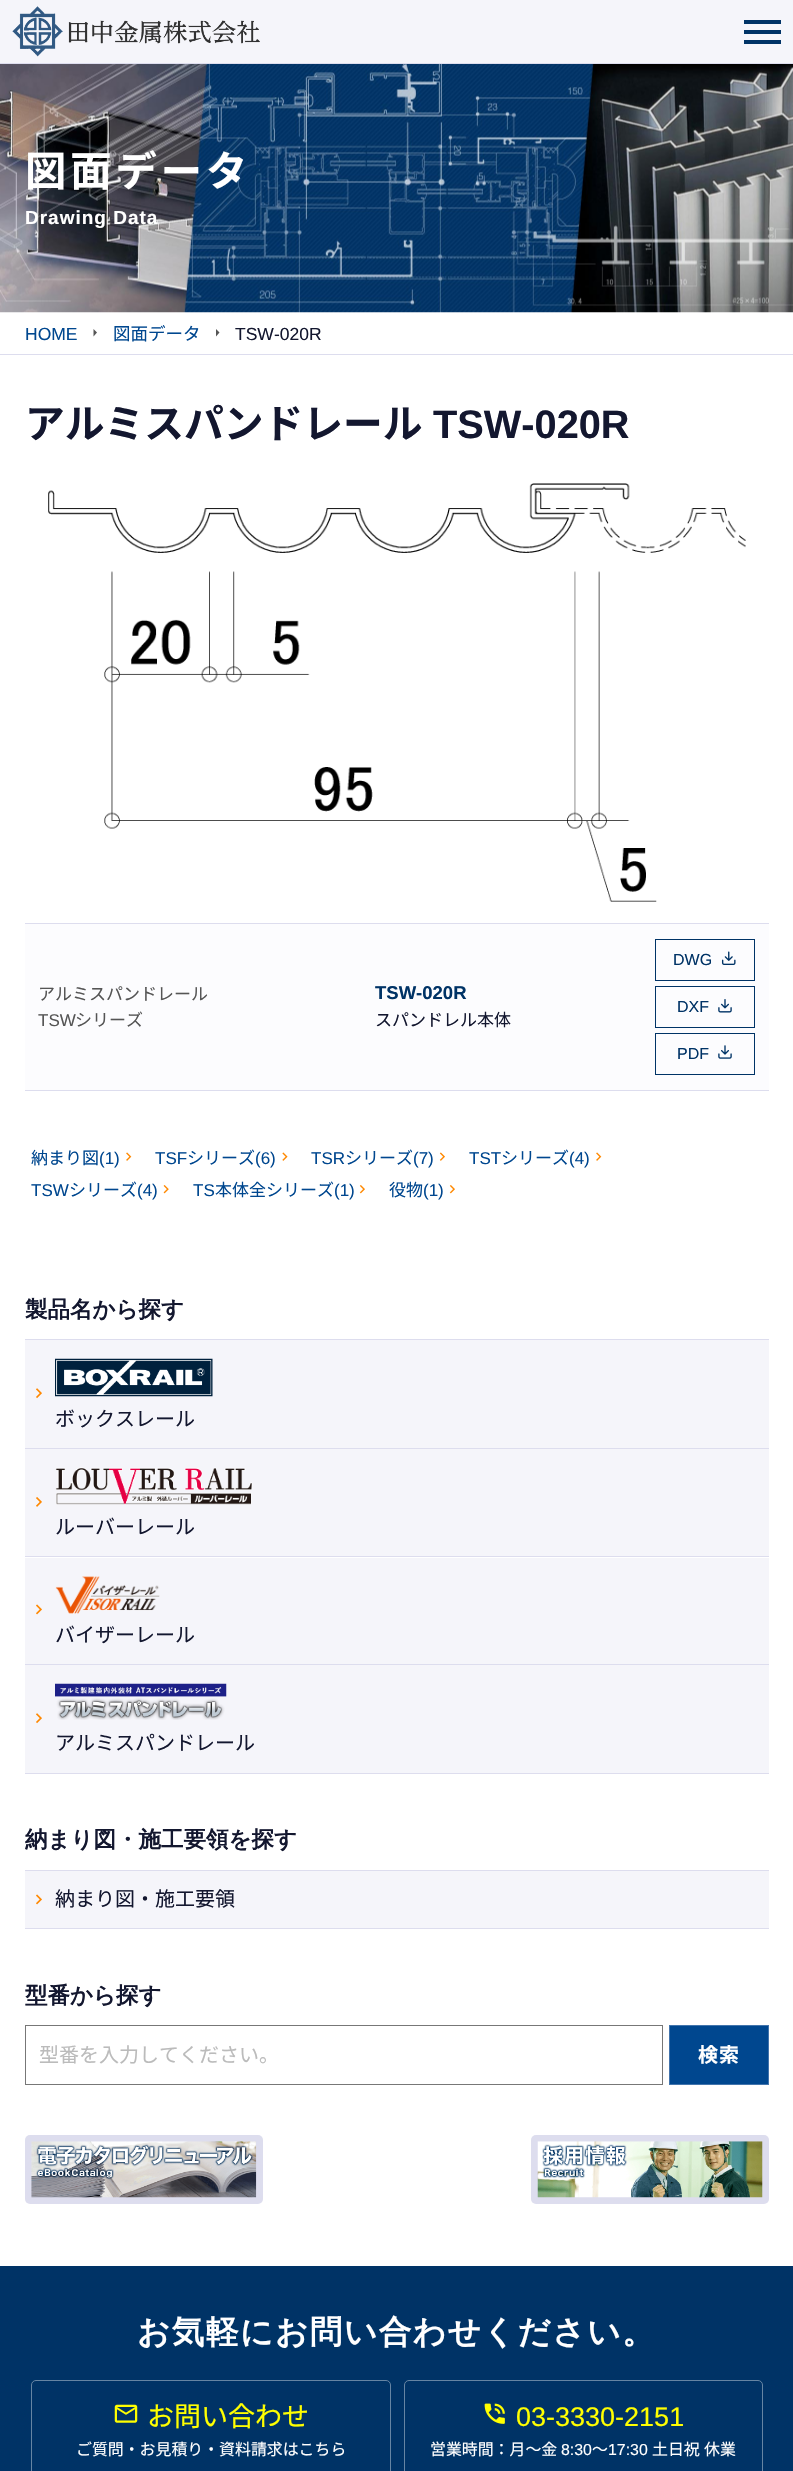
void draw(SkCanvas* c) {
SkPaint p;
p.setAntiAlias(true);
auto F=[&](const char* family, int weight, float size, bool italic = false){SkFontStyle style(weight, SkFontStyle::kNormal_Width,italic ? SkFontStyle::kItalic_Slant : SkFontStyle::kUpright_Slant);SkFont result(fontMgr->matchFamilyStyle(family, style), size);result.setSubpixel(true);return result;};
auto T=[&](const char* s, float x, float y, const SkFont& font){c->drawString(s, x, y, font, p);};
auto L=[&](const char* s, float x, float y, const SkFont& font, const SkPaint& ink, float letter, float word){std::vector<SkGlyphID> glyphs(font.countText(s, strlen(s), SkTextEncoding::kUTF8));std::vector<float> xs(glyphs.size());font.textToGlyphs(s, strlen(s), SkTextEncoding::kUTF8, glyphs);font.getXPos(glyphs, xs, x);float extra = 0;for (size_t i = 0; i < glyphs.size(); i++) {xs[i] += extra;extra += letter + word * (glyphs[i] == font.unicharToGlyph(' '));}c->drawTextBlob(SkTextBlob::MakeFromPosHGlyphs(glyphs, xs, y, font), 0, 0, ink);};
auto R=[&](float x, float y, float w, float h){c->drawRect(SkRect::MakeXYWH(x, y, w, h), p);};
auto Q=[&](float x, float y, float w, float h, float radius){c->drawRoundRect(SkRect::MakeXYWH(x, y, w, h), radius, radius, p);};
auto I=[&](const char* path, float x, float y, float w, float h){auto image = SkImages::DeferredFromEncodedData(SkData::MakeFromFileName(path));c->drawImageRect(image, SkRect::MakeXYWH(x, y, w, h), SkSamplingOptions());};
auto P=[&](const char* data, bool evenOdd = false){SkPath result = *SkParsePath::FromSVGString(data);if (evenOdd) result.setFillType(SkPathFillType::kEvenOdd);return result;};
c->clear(0xffffffff);
p.setColor(0xfff5f5fa);
R(0,0,793,63);
p.setColor(0xffddddee);
R(0,63,793,1);
I("1.png",12,6,248,51);
p.setColor(0xff003366);
R(744,40,37,4);
R(744,20,37,4);
R(744,30,37,4);
I("2.png",0,64,793,249);
auto f1 = F("Noto Sans CJK JP",700,41.25);
p.setColor(0xffffffff);
L("図面データ",25,186,f1,p,4,0);
auto f2 = F("Liberation Sans",700,19);
L("Drawing Data",25,224,f2,p,1,0);
p.setColor(0xffddddee);
R(0,354,793,1);
auto f3 = F("Liberation Sans",400,17.5);
p.setColor(0xff00478f);
T("HOME",25,340,f3);
p.setColor(0xff555555);
c->drawPath(P("M93.5 336.5v-7.5l3.5 3.5z"),p);
auto f4 = F("Noto Sans CJK JP",400,17.5);
p.setColor(0xff00478f);
T("図面データ",113,340,f4);
p.setColor(0xff555555);
c->drawPath(P("M216 336.5v-7.5l3.5 3.5z"),p);
p.setColor(0xff13172f);
T("TSW-020R",235,340,f3);
auto f5 = F("Noto Sans CJK JP",700,39.75);
T("アルミスパンドレール",25,438,f5);
auto f6 = F("Liberation Sans",700,39.75);
T("TSW-020R",433,438,f6);
I("3.png",48,483,698,419);
p.setColor(0xffddddee);
R(25,923,744,1);
p.setColor(0xfffcfcfe);
R(25,924,744,166);
p.setColor(0xffddddee);
R(25,1090,744,1);
auto f7 = F("Noto Sans CJK JP",400,17);
p.setColor(0xff555555);
T("アルミスパンドレール",38,1000,f7);
auto f8 = F("Liberation Sans",400,17);
T("TSW",38,1026,f8);
T("シリーズ",75,1026,f7);
auto f9 = F("Liberation Sans",700,18.5);
p.setColor(0xff003366);
T("TSW-020R",375,999,f9);
p.setColor(0xff13172f);
T("スパンドレル本体",375,1026,f7);
p.setStroke(true);
p.setStrokeWidth(1);
p.setColor(0xff003366);
c->drawRect(SkRect::MakeXYWH(655.5,939.5,99,41),p);
auto f10 = F("Liberation Sans",400,16);
p.setStroke(false);
T("DWG",673,965,f10);
I("4.png",721,951,15,14);
p.setStroke(true);
c->drawRect(SkRect::MakeXYWH(655.5,986.5,99,41),p);
p.setStroke(false);
T("DXF",677,1012,f10);
I("5.png",718,999,14,14);
p.setStroke(true);
c->drawRect(SkRect::MakeXYWH(655.5,1033.5,99,41),p);
p.setStroke(false);
T("PDF",677,1059,f10);
I("6.png",718,1045,14,14);
p.setColor(0xff00478f);
T("納まり図",31,1164,f7);
T("(1)",99,1164,f8);
I("7.png",126,1152,6,9);
T("TSF",155,1164,f8);
T("シリーズ",187,1164,f7);
T("(6)",255,1164,f8);
I("8.png",282,1152,6,9);
T("TSR",311,1164,f8);
T("シリーズ",345,1164,f7);
T("(7)",413,1164,f8);
I("9.png",439,1152,6,9);
T("TST",469,1164,f8);
T("シリーズ",501,1164,f7);
T("(4)",569,1164,f8);
I("7.png",596,1152,6,9);
T("TSW",31,1196,f8);
T("シリーズ",69,1196,f7);
T("(4)",137,1196,f8);
I("10.png",163,1185,6,9);
T("TS",193,1196,f8);
T("本体全シリーズ",215,1196,f7);
T("(1)",334,1196,f8);
I("11.png",359,1185,6,9);
T("役物",389,1196,f7);
T("(1)",423,1196,f8);
I("11.png",449,1185,6,9);
auto f11 = F("WenQuanYi Zen Hei",700,22.5);
p.setColor(0xff13172f);
T("製品名から探す",25,1317,f11);
p.setColor(0xffddddee);
R(25,1339,744,1);
R(25,1448,744,1);
p.setColor(0xfff5f5fa);
R(25,1340,744,108);
I("12.png",36,1388,6,11);
I("13.png",55,1358,158,39);
auto f12 = F("Noto Sans CJK JP",400,20);
p.setColor(0xff13172f);
T("ボックスレール",55,1426,f12);
p.setColor(0xffddddee);
R(25,1556,744,1);
p.setColor(0xfff5f5fa);
R(25,1449,744,107);
I("14.png",36,1497,6,10);
I("15.png",55,1467,198,38);
p.setColor(0xff13172f);
T("ルーバーレール",55,1534,f12);
p.setColor(0xffddddee);
R(25,1664,744,1);
p.setColor(0xfff5f5fa);
R(25,1558,744,106);
I("16.png",36,1604,6,11);
I("17.png",55,1576,105,38);
p.setColor(0xff13172f);
T("バイザーレール",55,1642,f12);
p.setColor(0xffddddee);
R(25,1773,744,1);
p.setColor(0xfff5f5fa);
R(25,1665,744,108);
I("12.png",36,1713,6,11);
I("18.png",55,1683,172,37);
p.setColor(0xff13172f);
T("アルミスパンドレール",55,1750,f12);
T("納まり図・施工要領を探す",25,1847,f11);
p.setColor(0xffddddee);
R(25,1870,744,1);
R(25,1928,744,1);
p.setColor(0xfff5f5fa);
R(25,1871,744,57);
I("16.png",36,1894,6,11);
p.setColor(0xff13172f);
T("納まり図・施工要領",55,1906,f12);
T("型番から探す",25,2003,f11);
p.setStroke(true);
p.setColor(0xff777777);
c->drawRect(SkRect::MakeXYWH(25.5,2025.5,637,59),p);
p.setStroke(false);
p.setColor(0xffbbbbbb);
T("型番を入力してください。",39,2062,f12);
p.setColor(0xff00478f);
c->drawRect(SkRect::MakeXYWH(669.5,2025.5,99,59),p);
p.setStroke(true);
p.setColor(0xff4274ac);
c->drawRect(SkRect::MakeXYWH(669.5,2025.5,99,59),p);
auto f13 = F("Noto Sans CJK JP",700,20);
p.setStroke(false);
p.setColor(0xffffffff);
L("検索",698,2062,f13,p,1,0);
p.setColor(0xffddddee);
Q(25,2135,238,69,5);
I("19.png",31,2141,226,57);
Q(531,2135,238,69,5);
I("20.png",537,2141,226,57);
p.setColor(0xff003366);
R(0,2266,793,205);
auto f14 = F("WenQuanYi Zen Hei",700,32.5);
p.setColor(0xffffffff);
L("お気軽にお問い合わせください。",137,2343,f14,p,1.6,0);
p.setStroke(true);
p.setColor(0xff6685a3);
c->drawRoundRect(SkRect::MakeXYWH(31.5,2380.5,359,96),4.5,4.5,p);
I("21.png",114,2404,24,19);
auto f15 = F("Noto Sans CJK JP",400,27);
p.setStroke(false);
p.setColor(0xffffff00);
T("お問い合わせ",147,2426,f15);
auto f16 = F("Noto Sans CJK JP",400,15.9);
p.setColor(0xffffffff);
T("ご質問・お見積り・資料請求はこちら",76,2455,f16);
p.setStroke(true);
p.setColor(0xff6685a3);
c->drawRoundRect(SkRect::MakeXYWH(404.5,2380.5,358,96),4.5,4.5,p);
I("22.png",484,2403,21,21);
auto f17 = F("Liberation Sans",400,27);
p.setStroke(false);
p.setColor(0xffffff00);
T("03-3330-2151",516,2426,f17);
p.setColor(0xffffffff);
T("営業時間：月〜金",430,2455,f16);
auto f18 = F("Liberation Sans",400,15.9);
T("8:30",561,2455,f18);
T("～",592,2455,f16);
T("17:30",608,2455,f18);
T("土日祝",652,2455,f16);
T("休業",704,2455,f16);
}
